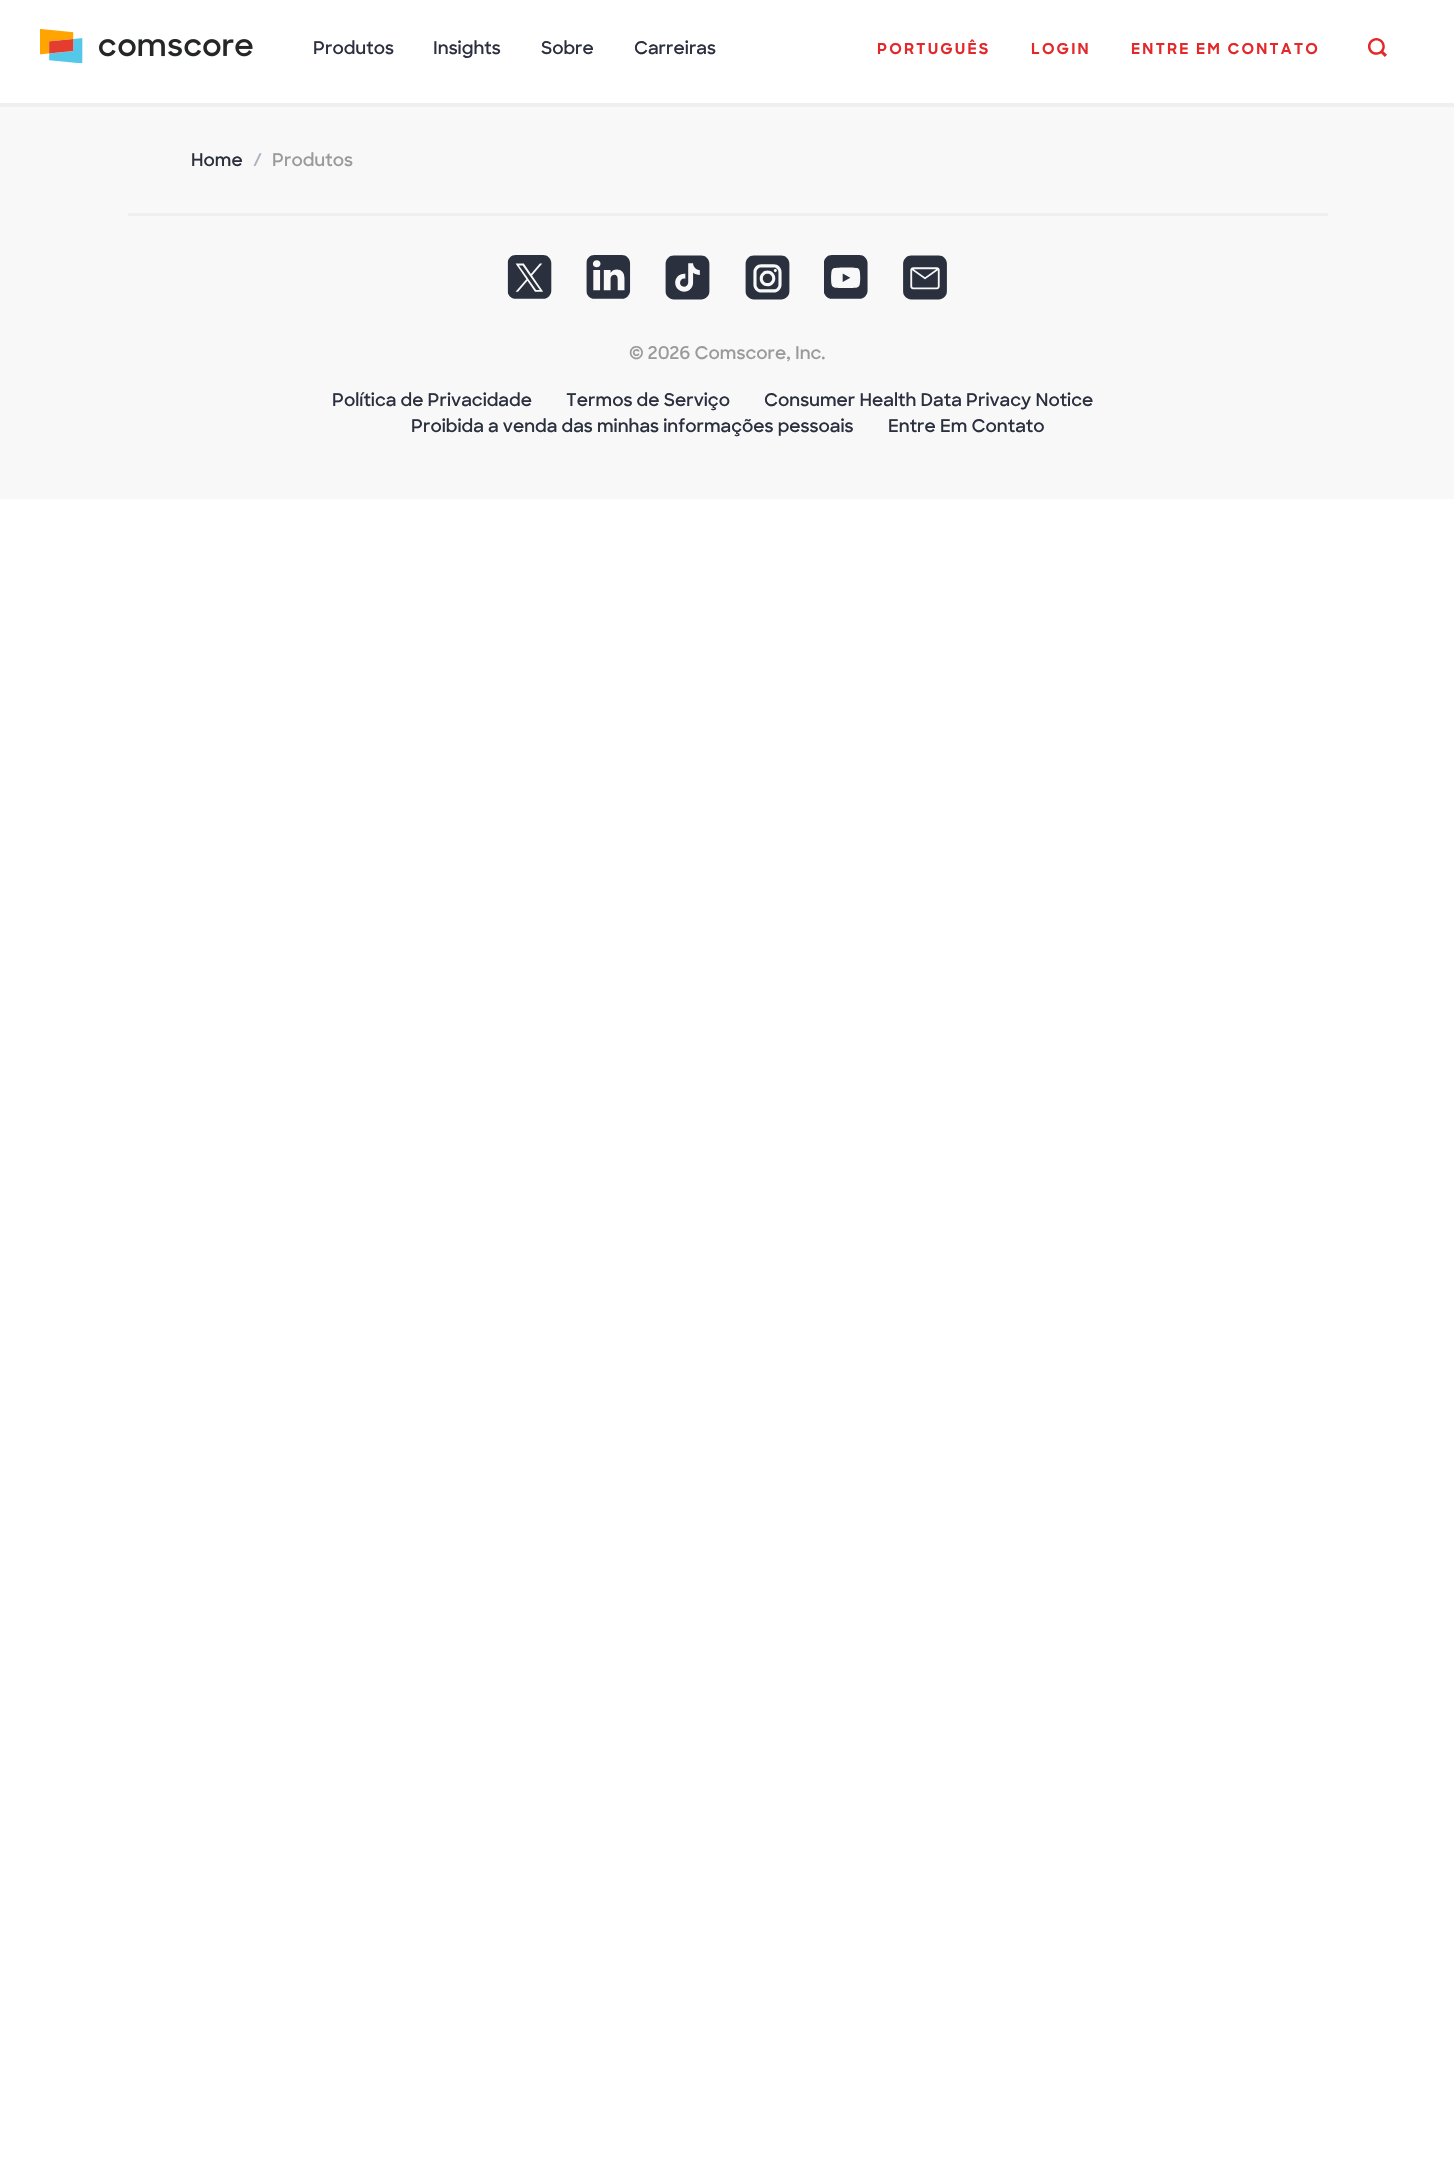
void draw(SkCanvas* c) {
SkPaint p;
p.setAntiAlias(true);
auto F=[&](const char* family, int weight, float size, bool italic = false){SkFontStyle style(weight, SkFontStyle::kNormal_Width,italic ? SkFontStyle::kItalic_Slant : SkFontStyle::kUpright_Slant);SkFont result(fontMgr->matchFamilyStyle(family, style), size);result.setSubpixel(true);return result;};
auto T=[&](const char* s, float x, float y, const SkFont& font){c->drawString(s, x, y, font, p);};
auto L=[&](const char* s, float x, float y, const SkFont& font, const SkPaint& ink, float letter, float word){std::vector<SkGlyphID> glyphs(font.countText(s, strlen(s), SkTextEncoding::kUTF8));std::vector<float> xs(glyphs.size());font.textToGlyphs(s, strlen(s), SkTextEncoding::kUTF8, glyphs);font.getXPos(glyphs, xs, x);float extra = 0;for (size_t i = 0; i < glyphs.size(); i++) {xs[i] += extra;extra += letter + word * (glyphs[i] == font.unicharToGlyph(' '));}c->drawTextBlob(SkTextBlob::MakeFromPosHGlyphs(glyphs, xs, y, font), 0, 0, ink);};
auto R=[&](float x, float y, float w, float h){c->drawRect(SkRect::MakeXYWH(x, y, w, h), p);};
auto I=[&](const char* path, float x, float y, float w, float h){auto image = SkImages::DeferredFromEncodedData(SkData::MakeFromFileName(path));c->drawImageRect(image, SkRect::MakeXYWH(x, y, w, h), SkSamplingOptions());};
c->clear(0xffffffff);
I("1.png",40,29,213,34);
auto f1 = F("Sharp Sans",600,17.5);
p.setColor(0xff2a303e);
T("Produtos",313,54,f1);
T("Insights",433,54,f1);
T("Sobre",541,54,f1);
T("Carreiras",634,54,f1);
auto f2 = F("Sharp Sans",700,15);
p.setColor(0xffe4282a);
L("PORTUGUÊS",877,54,f2,p,2.1,0);
L("LOGIN",1031,54,f2,p,2.1,0);
L("ENTRE EM CONTATO",1131,54,f2,p,2.1,0);
I("2.png",1368,38,19,19);
p.setColor(0xfff8f8f8);
R(0,107,1454,392);
p.setColor(0xffefefef);
R(0,103,1454,4);
p.setColor(0xff2a303e);
T("Home",191,166,f1);
p.setColor(0xffadb5bd);
T("/",253,166,f1);
p.setColor(0xff9a9a9a);
T("Produtos",272,166,f1);
p.setColor(0xffefefef);
R(128,213,1200,3);
I("3.png",507,255,45,44);
I("4.png",586,255,45,44);
I("5.png",665,255,45,45);
I("6.png",745,255,45,45);
I("7.png",824,255,44,44);
I("8.png",903,255,44,45);
p.setColor(0xff9a9a9a);
T("© 2026 Comscore, Inc.",629,359,f1);
p.setColor(0xff2a303e);
T("Política de Privacidade",332,406,f1);
T("Termos de Serviço",566,406,f1);
T("Consumer Health Data Privacy Notice",764,406,f1);
T("Proibida a venda das minhas informações pessoais",411,432,f1);
T("Entre Em Contato",888,432,f1);
}
